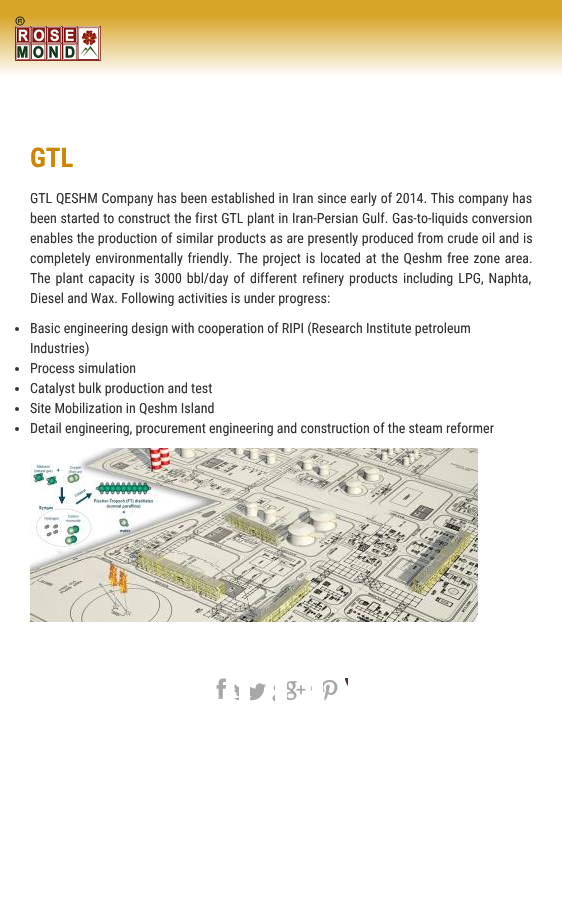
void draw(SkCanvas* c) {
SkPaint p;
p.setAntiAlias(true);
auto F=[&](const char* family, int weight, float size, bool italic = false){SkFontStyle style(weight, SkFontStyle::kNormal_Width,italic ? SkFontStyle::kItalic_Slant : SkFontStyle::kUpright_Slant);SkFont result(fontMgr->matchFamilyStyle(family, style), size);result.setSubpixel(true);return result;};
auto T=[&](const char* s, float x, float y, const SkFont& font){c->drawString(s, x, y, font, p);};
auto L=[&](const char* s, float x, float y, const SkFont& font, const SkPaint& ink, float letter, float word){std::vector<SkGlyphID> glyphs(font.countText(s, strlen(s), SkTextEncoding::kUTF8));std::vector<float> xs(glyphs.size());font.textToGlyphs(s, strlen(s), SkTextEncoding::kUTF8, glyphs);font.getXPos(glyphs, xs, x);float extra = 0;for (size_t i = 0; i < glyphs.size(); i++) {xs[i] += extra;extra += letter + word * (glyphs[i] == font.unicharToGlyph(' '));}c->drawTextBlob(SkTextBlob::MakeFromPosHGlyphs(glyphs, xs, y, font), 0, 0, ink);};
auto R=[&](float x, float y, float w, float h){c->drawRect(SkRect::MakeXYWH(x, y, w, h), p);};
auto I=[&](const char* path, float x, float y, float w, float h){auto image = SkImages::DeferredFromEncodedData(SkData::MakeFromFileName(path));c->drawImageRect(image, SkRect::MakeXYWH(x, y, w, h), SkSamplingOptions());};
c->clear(0xffffffff);
{
const SkColor colors[] = {0xffd6a427,0xffffffff};
const float stops[] = {.2,1};
const SkPoint ends[] = {{281,0}, {281,77}};
p.setShader(SkGradientShader::MakeLinear(ends, colors, stops, 2, SkTileMode::kClamp));
p.setAlpha(255);
}
R(0,0,562,76);
I("1.png",15,16,86,45);
auto f1 = F("Roboto Condensed",700,27);
p.setShader(nullptr);
p.setColor(0xffce8600);
T("GTL",30,167,f1);
auto f2 = F("Roboto Condensed",400,14);
p.setColor(0xff333333);
L("GTL QESHM Company has been established in Iran since early of 2014. This company has",30,203,f2,p,0,.5);
L("been started to construct the first GTL plant in Iran-Persian Gulf. Gas-to-liquids conversion",30,223,f2,p,0,.4);
L("enables the production of similar products as are presently produced from crude oil and is",30,243,f2,p,0,.4);
L("completely environmentally friendly. The project is located at the Qeshm free zone area.",30,263,f2,p,0,1.5);
L("The plant capacity is 3000 bbl/day of different refinery products including LPG, Naphta,",30,283,f2,p,0,1.75);
T("Diesel and Wax. Following activities is under progress:",30,303,f2);
c->drawCircle(17,329,2,p);
T("Basic engineering design with cooperation of RIPI (Research Institute petroleum",30,333,f2);
T("Industries)",30,353,f2);
c->drawCircle(17,369,2,p);
T("Process simulation",30,373,f2);
c->drawCircle(17,389,2,p);
T("Catalyst bulk production and test",30,393,f2);
c->drawCircle(17,409,2,p);
T("Site Mobilization in Qeshm Island",30,413,f2);
c->drawCircle(17,429,2,p);
T("Detail engineering, procurement engineering and construction of the steam reformer",30,433,f2);
I("2.png",30,448,448,174);
I("3.png",216,678,23,23);
I("4.png",250,683,25,19);
I("5.png",287,681,25,20);
I("6.png",323,678,25,23);
}
